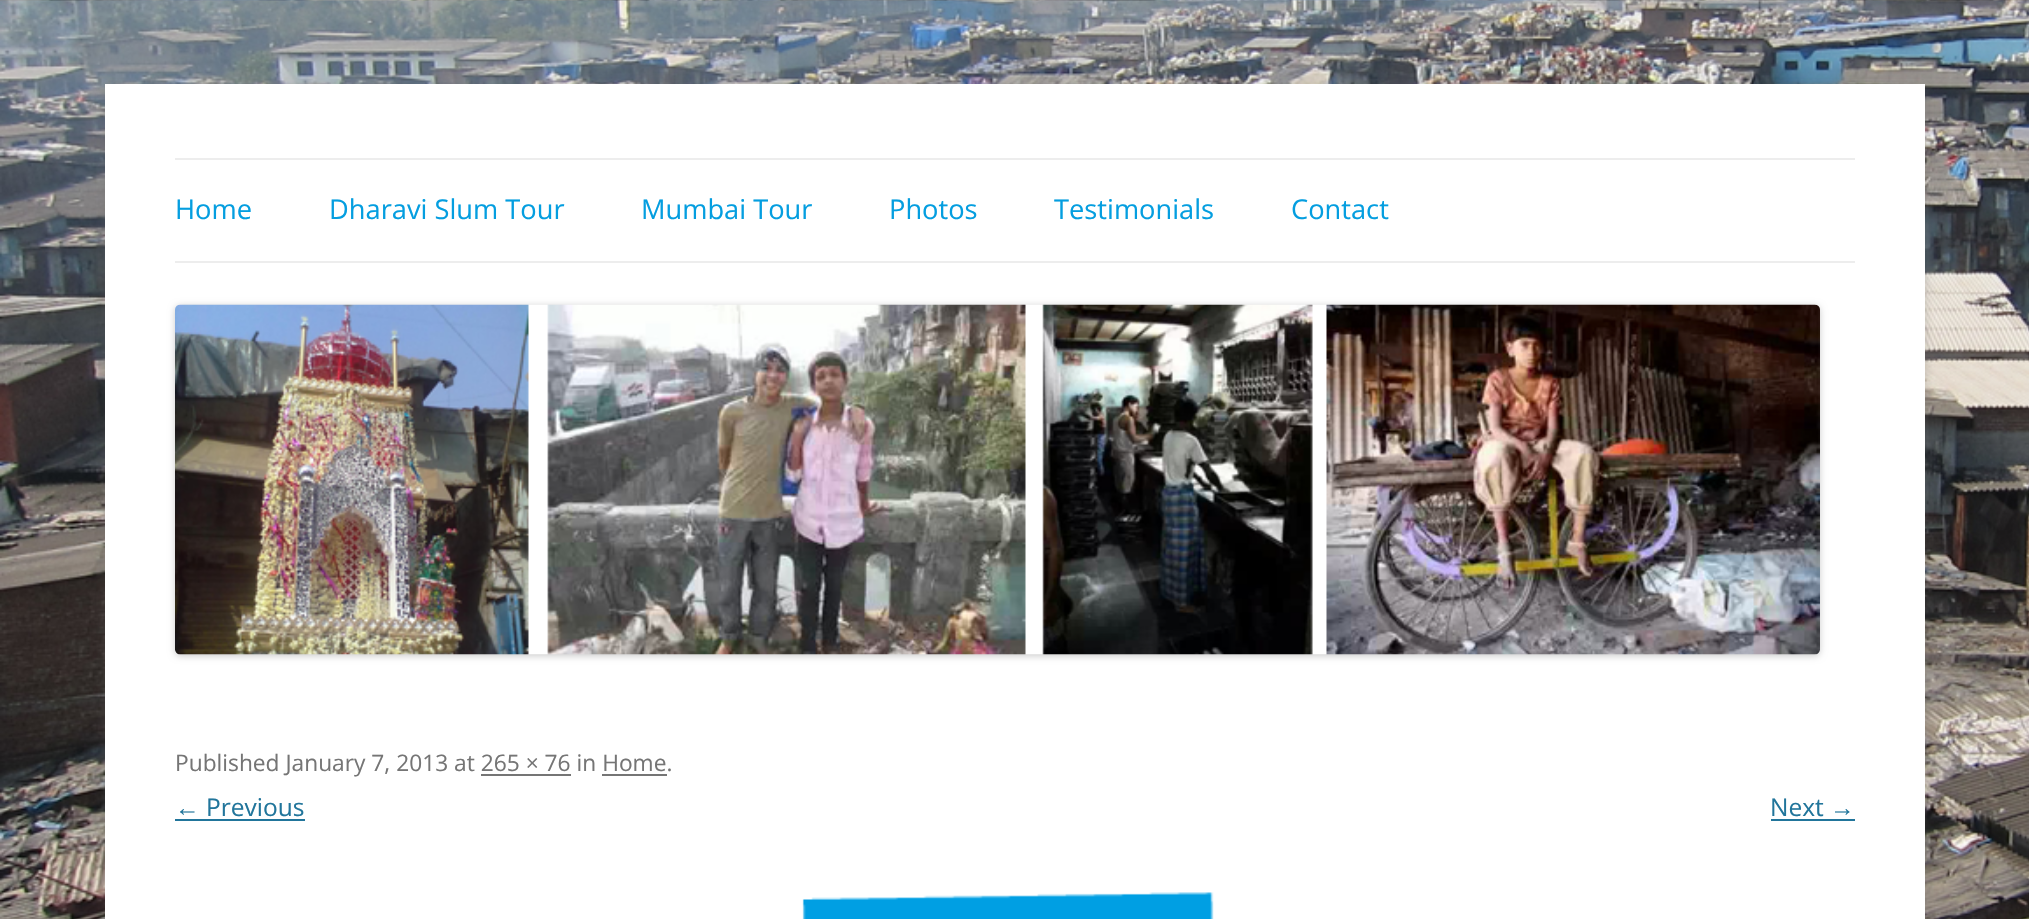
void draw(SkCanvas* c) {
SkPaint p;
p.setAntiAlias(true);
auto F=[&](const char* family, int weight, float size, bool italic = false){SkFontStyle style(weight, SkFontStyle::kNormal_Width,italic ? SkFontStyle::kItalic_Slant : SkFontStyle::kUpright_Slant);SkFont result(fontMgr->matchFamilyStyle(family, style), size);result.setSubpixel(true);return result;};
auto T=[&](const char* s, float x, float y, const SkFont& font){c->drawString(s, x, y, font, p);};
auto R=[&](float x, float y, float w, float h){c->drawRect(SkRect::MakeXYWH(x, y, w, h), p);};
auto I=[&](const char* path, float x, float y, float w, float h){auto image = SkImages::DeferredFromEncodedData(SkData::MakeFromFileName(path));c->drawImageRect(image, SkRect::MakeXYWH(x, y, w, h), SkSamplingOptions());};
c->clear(0xffffffff);
I("1.png",0,0,2029,919);
p.setColor(0x4d646464);
p.setMaskFilter(SkMaskFilter::MakeBlur(kNormal_SkBlurStyle, 5));
c->drawRect(SkRect::MakeXYWH(105,88,1820,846),p);
p.setMaskFilter(nullptr);
p.setColor(0xffffffff);
R(105,84,1820,835);
p.setColor(0xffededed);
R(175,158,1680,2);
R(175,261,1680,2);
auto f1 = F("Open Sans",400,27.25);
p.setColor(0xff049ee0);
T("Home",175,219,f1);
T("Dharavi Slum Tour",329,219,f1);
T("Mumbai Tour",641,219,f1);
T("Photos",889,219,f1);
T("Testimonials",1054,219,f1);
T("Contact",1291,219,f1);
p.setColor(0x33000000);
p.setMaskFilter(SkMaskFilter::MakeBlur(kNormal_SkBlurStyle, 3.5));
c->drawRoundRect(SkRect::MakeXYWH(175,306,1645,350),5,5,p);
p.setMaskFilter(nullptr);
I("2.png",175,304,1645,351);
auto f2 = F("Open Sans",400,22.75);
p.setColor(0xff757575);
T("Published January 7, 2013 at 265 × 76 in Home.",175,771,f2);
R(481,774,90,2);
R(602,774,65,2);
auto f3 = F("Liberation Sans",400,24.5);
p.setColor(0xff21759b);
T("←",175,816,f3);
R(175,819,130,2);
auto f4 = F("Open Sans",400,24.5);
T("Previous",206,816,f4);
T("Next",1770,816,f4);
T("→",1830,816,f3);
R(1771,819,84,2);
I("3.png",802,892,412,27);
}
